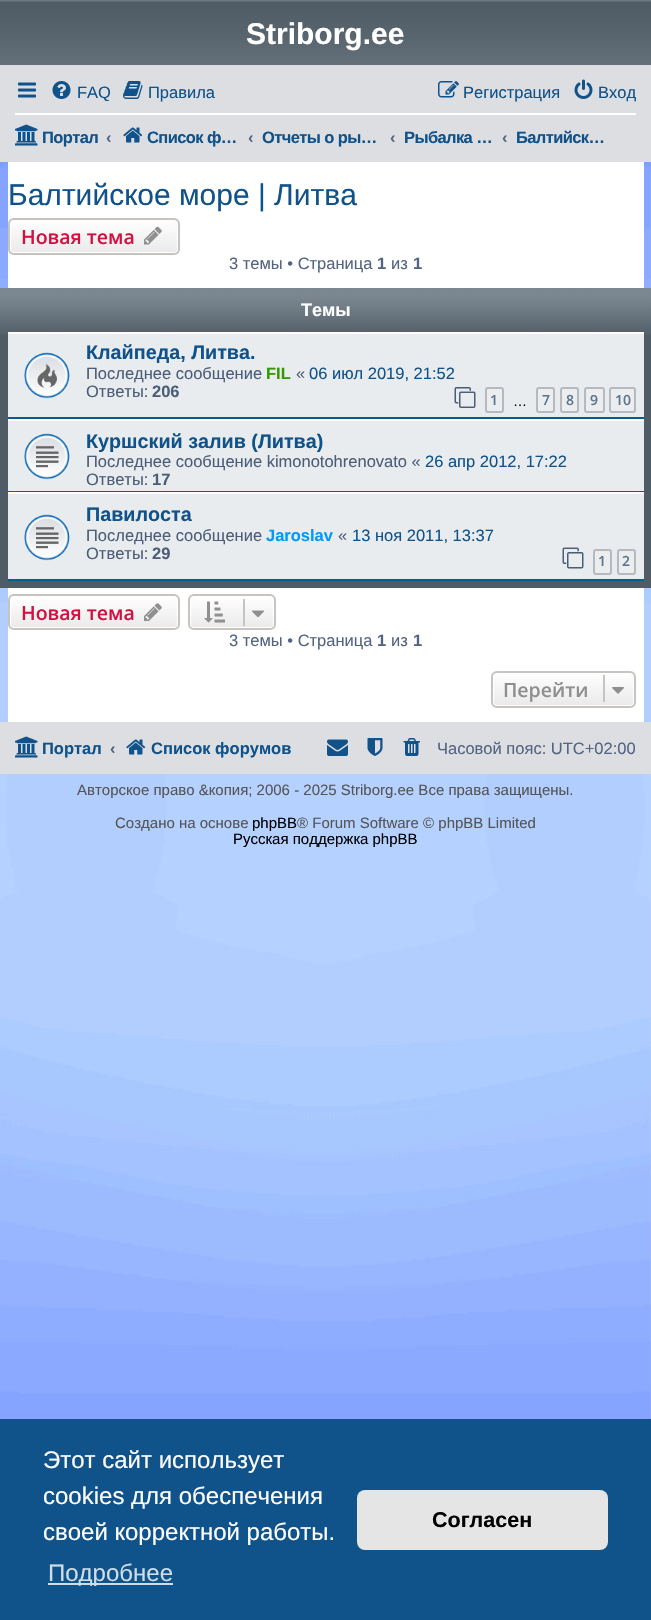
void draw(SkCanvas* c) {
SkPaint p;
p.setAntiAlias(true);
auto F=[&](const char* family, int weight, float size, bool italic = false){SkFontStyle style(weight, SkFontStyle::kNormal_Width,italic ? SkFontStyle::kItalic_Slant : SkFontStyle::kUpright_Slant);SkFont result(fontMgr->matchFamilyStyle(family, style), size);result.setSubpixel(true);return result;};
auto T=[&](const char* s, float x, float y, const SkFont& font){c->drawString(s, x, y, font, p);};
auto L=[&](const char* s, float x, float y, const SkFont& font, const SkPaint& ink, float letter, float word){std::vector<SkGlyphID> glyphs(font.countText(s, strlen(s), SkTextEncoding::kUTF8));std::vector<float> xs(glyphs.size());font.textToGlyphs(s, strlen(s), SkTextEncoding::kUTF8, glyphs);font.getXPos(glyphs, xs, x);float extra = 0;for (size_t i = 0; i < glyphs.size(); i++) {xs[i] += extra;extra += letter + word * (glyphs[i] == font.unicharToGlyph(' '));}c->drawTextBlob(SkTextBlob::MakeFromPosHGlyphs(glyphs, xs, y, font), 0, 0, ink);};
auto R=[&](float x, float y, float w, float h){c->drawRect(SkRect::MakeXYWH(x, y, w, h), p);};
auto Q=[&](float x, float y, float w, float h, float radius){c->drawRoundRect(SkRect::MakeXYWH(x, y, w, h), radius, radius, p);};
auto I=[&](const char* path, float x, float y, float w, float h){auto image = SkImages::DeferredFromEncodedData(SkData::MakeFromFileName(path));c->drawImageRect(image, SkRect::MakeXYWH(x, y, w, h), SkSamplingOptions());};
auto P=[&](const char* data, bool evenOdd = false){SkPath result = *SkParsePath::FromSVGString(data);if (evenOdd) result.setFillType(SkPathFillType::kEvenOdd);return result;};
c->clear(0xffffffff);
I("1.png",650,162,1,1257);
I("2.png",0,162,651,1257);
p.setColor(0xffffffff);
R(8,162,636,560);
I("3.png",0,0,651,65);
auto f1 = F("Liberation Sans",700,30);
T("Striborg.ee",246,44,f1);
p.setColor(0xffdcdee2);
R(0,65,651,97);
I("4.png",18,82,18,16);
I("5.png",52,81,19,18);
auto f2 = F("Liberation Sans",400,16.5);
p.setColor(0xff105289);
T("FAQ",77,98,f2);
I("6.png",123,81,20,18);
T("Правила",148,98,f2);
I("7.png",438,81,21,17);
T("Регистрация",463,98,f2);
I("8.png",574,79,19,20);
T("Вход",598,98,f2);
p.setColor(0xffffffff);
R(15,113,621,2);
I("9.png",15,124,23,22);
auto f3 = F("Liberation Sans",700,16.5);
p.setColor(0xff105289);
L("Портал",42,143,f3,p,-.6,0);
p.setColor(0xff536482);
T("‹",106,143,f3);
I("10.png",123,127,20,16);
p.setColor(0xff105289);
L("Список ф…",147,143,f3,p,-.6,0);
p.setColor(0xff536482);
T("‹",248,143,f3);
p.setColor(0xff105289);
L("Отчеты о ры…",262,143,f3,p,-.6,0);
p.setColor(0xff536482);
T("‹",390,143,f3);
p.setColor(0xff105289);
L("Рыбалка …",404,143,f3,p,-.6,0);
p.setColor(0xff536482);
T("‹",502,143,f3);
p.setColor(0xff105289);
L("Балтийск…",516,143,f3,p,-.6,0);
auto f4 = F("Liberation Sans",400,30);
T("Балтийское море | Литва",8,205,f4);
c->save();
c->clipPath(P("M14 218h160c3.5 0 6 2.5 6 6v25c0 3.5-2.5 6-6 6h-160c-3.5 0-6-2.5-6-6v-25c0-3.5 2.5-6 6-6z"),true);
{
const SkColor colors[] = {0xffffffff,0xffe9e9e9};
const float stops[] = {0,1};
const SkPoint ends[] = {{94,219}, {94,254}};
p.setShader(SkGradientShader::MakeLinear(ends, colors, stops, 2, SkTileMode::kClamp));
p.setAlpha(255);
}
R(8,219,172,35);
c->restore();
p.setStroke(true);
p.setStrokeWidth(2);
p.setShader(nullptr);
p.setColor(0xffffffff);
c->drawRoundRect(SkRect::MakeXYWH(10,220,168,33),4,4,p);
p.setColor(0xffc7c3bf);
c->drawRoundRect(SkRect::MakeXYWH(9,219,170,35),5,5,p);
auto f5 = F("Open Sans",600,19.5);
p.setStroke(false);
p.setColor(0xffd31141);
T("Новая тема",21,244,f5);
I("11.png",144,226,18,19);
p.setColor(0xff536482);
T("3 темы • Страница",229,269,f2);
T("1",377,269,f3);
T("из",391,269,f2);
T("1",413,269,f3);
p.setColor(0xff505c65);
R(0,335,651,253);
I("12.png",0,288,651,47);
auto f6 = F("Liberation Sans",700,18);
p.setColor(0xffffffff);
T("Темы",301,316,f6);
p.setColor(0xffe8ecee);
R(8,334,636,83);
p.setColor(0xffffffff);
R(8,332,636,2);
p.setColor(0xff00608f);
R(8,417,636,2);
I("13.png",24,352,46,47);
auto f7 = F("Liberation Sans",700,19.75);
p.setColor(0xff105289);
T("Клайпеда, Литва.",86,359,f7);
p.setColor(0xff4c5d77);
T("Последнее сообщение",86,379,f2);
p.setColor(0xff339900);
T("FIL",266,379,f3);
p.setColor(0xff4c5d77);
T("«",296,379,f2);
p.setColor(0xff105289);
T("06 июл 2019, 21:52",309,379,f2);
p.setColor(0xff4c5d77);
T("Ответы:",86,397,f2);
T("206",152,397,f3);
I("14.png",454,387,22,21);
p.setColor(0xffecedee);
c->drawRoundRect(SkRect::MakeXYWH(486,388,17,24),2,2,p);
p.setStroke(true);
p.setColor(0xffb4bac0);
c->drawRoundRect(SkRect::MakeXYWH(486,388,17,24),2,2,p);
auto f8 = F("Open Sans",600,14);
p.setStroke(false);
p.setColor(0xff5c758c);
T("1",490,405,f8);
auto f9 = F("Liberation Sans",400,14);
p.setColor(0xff000000);
T("…",513,406,f9);
p.setColor(0xffecedee);
c->drawRoundRect(SkRect::MakeXYWH(537,388,17,24),2,2,p);
p.setStroke(true);
p.setColor(0xffb4bac0);
c->drawRoundRect(SkRect::MakeXYWH(537,388,17,24),2,2,p);
p.setStroke(false);
p.setColor(0xff5c758c);
T("7",542,405,f8);
p.setColor(0xffecedee);
c->drawRoundRect(SkRect::MakeXYWH(561,388,17,24),2,2,p);
p.setStroke(true);
p.setColor(0xffb4bac0);
c->drawRoundRect(SkRect::MakeXYWH(561,388,17,24),2,2,p);
p.setStroke(false);
p.setColor(0xff5c758c);
T("8",566,405,f8);
p.setColor(0xffecedee);
c->drawRoundRect(SkRect::MakeXYWH(585,388,19,24),2,2,p);
p.setStroke(true);
p.setColor(0xffb4bac0);
c->drawRoundRect(SkRect::MakeXYWH(585,388,19,24),2,2,p);
p.setStroke(false);
p.setColor(0xff5c758c);
T("9",590,405,f8);
p.setColor(0xffecedee);
c->drawRoundRect(SkRect::MakeXYWH(610,388,25,24),2,2,p);
p.setStroke(true);
p.setColor(0xffb4bac0);
c->drawRoundRect(SkRect::MakeXYWH(610,388,25,24),2,2,p);
p.setStroke(false);
p.setColor(0xff5c758c);
T("10",615,405,f8);
p.setColor(0xffe8ecee);
R(8,421,636,70);
p.setColor(0xffffffff);
R(8,419,636,2);
p.setColor(0xff00608f);
R(8,491,636,1);
I("15.png",24,433,46,47);
p.setColor(0xff105289);
T("Куршский залив (Литва)",86,448,f7);
p.setColor(0xff4c5d77);
T("Последнее сообщение kimonotohrenovato «",86,467,f2);
p.setColor(0xff105289);
T("26 апр 2012, 17:22",425,467,f2);
p.setColor(0xff4c5d77);
T("Ответы:",86,485,f2);
T("17",152,485,f3);
p.setColor(0xffe8ecee);
R(8,494,636,85);
p.setColor(0xffffffff);
R(8,492,636,2);
p.setColor(0xff00608f);
R(8,579,636,2);
I("15.png",24,514,46,47);
p.setColor(0xff105289);
T("Павилоста",86,521,f7);
p.setColor(0xff4c5d77);
T("Последнее сообщение",86,541,f2);
p.setColor(0xff0099ff);
T("Jaroslav",266,541,f3);
p.setColor(0xff4c5d77);
T("«",338,541,f2);
p.setColor(0xff105289);
T("13 ноя 2011, 13:37",352,541,f2);
p.setColor(0xff4c5d77);
T("Ответы:",86,559,f2);
T("29",152,559,f3);
I("16.png",562,547,22,22);
p.setColor(0xffecedee);
c->drawRoundRect(SkRect::MakeXYWH(594,550,17,24),2,2,p);
p.setStroke(true);
p.setColor(0xffb4bac0);
c->drawRoundRect(SkRect::MakeXYWH(594,550,17,24),2,2,p);
p.setStroke(false);
p.setColor(0xff5c758c);
T("1",598,566,f8);
p.setColor(0xffecedee);
c->drawRoundRect(SkRect::MakeXYWH(618,550,17,24),2,2,p);
p.setStroke(true);
p.setColor(0xffb4bac0);
c->drawRoundRect(SkRect::MakeXYWH(618,550,17,24),2,2,p);
p.setStroke(false);
p.setColor(0xff5c758c);
T("2",622,566,f8);
c->save();
c->clipPath(P("M14 594h160c3.5 0 6 2.5 6 6v24c0 3.5-2.5 6-6 6h-160c-3.5 0-6-2.5-6-6v-24c0-3.5 2.5-6 6-6z"),true);
{
const SkColor colors[] = {0xffffffff,0xffe9e9e9};
const float stops[] = {0,1};
const SkPoint ends[] = {{94,596}, {94,629}};
p.setShader(SkGradientShader::MakeLinear(ends, colors, stops, 2, SkTileMode::kClamp));
p.setAlpha(255);
}
R(8,596,172,33);
c->restore();
p.setStroke(true);
p.setShader(nullptr);
p.setColor(0xffffffff);
c->drawRoundRect(SkRect::MakeXYWH(10,597,168,31),4,4,p);
p.setColor(0xffc7c3bf);
c->drawRoundRect(SkRect::MakeXYWH(9,595,170,34),5,5,p);
p.setStroke(false);
p.setColor(0xffd31141);
T("Новая тема",21,620,f5);
I("17.png",144,603,18,18);
c->save();
c->clipPath(P("M194 594h76c3.5 0 6 2.5 6 6v24c0 3.5-2.5 6-6 6h-76c-3.5 0-6-2.5-6-6v-24c0-3.5 2.5-6 6-6z"),true);
{
const SkColor colors[] = {0xffffffff,0xffe9e9e9};
const float stops[] = {0,1};
const SkPoint ends[] = {{232,596}, {232,629}};
p.setShader(SkGradientShader::MakeLinear(ends, colors, stops, 2, SkTileMode::kClamp));
p.setAlpha(255);
}
R(188,596,88,33);
c->restore();
p.setStroke(true);
p.setShader(nullptr);
p.setColor(0xffffffff);
c->drawRoundRect(SkRect::MakeXYWH(190,597,84,31),4,4,p);
p.setColor(0xffc7c3bf);
c->drawRoundRect(SkRect::MakeXYWH(189,595,86,34),5,5,p);
I("18.png",204,601,21,22);
p.setStroke(false);
R(243,599,2,27);
I("19.png",252,610,12,8);
p.setColor(0xff536482);
T("3 темы • Страница",229,646,f2);
T("1",377,646,f3);
T("из",391,646,f2);
T("1",413,646,f3);
c->save();
c->clipPath(P("M497 671h133c3.5 0 6 2.5 6 6v25c0 3.5-2.5 6-6 6h-133c-3.5 0-6-2.5-6-6v-25c0-3.5 2.5-6 6-6z"),true);
{
const SkColor colors[] = {0xffffffff,0xffe9e9e9};
const float stops[] = {0,1};
const SkPoint ends[] = {{563,672}, {563,707}};
p.setShader(SkGradientShader::MakeLinear(ends, colors, stops, 2, SkTileMode::kClamp));
p.setAlpha(255);
}
R(491,672,145,35);
c->restore();
p.setStroke(true);
p.setShader(nullptr);
p.setColor(0xffffffff);
c->drawRoundRect(SkRect::MakeXYWH(493,673,141,33),4,4,p);
p.setColor(0xffc7c3bf);
c->drawRoundRect(SkRect::MakeXYWH(492,672,143,35),5,5,p);
p.setStroke(false);
p.setColor(0xff8f8f8f);
T("Перейти",503,697,f5);
p.setColor(0xffc7c3bf);
R(603,675,2,27);
I("20.png",612,687,12,7);
p.setColor(0xffdcdee2);
R(0,722,651,52);
I("9.png",15,736,23,22);
p.setColor(0xff105289);
T("Портал",42,754,f3);
p.setColor(0xff536482);
T("‹",110,754,f3);
I("10.png",126,739,20,16);
p.setColor(0xff105289);
T("Список форумов",151,754,f3);
I("21.png",327,739,21,17);
I("22.png",367,738,16,18);
I("23.png",403,738,17,18);
p.setColor(0xff536482);
T("Часовой пояс: UTC+02:00",437,754,f2);
auto f10 = F("Liberation Sans",400,15);
p.setColor(0xff555555);
T("Авторское право &копия; 2006 - 2025 Striborg.ee Все права защищены.",77,795,f10);
T("Создано на основе",115,828,f10);
p.setColor(0xff000000);
T("phpBB",252,828,f10);
p.setColor(0xff555555);
T("® Forum Software © phpBB Limited",297,828,f10);
p.setColor(0xff000000);
T("Русская поддержка phpBB",233,844,f10);
p.setColor(0xff0f538a);
R(0,1419,651,201);
auto f11 = F("Liberation Sans",400,24);
p.setColor(0xffffffff);
T("Этот сайт использует",43,1468,f11);
T("cookies для обеспечения",43,1504,f11);
T("своей корректной работы.",43,1540,f11);
p.setColor(0xffcfdde8);
R(48,1583,125,2);
T("Подробнее",48,1581,f11);
p.setColor(0xffe5e5e5);
Q(357,1490,251,60,8);
auto f12 = F("Liberation Sans",700,21.5);
p.setColor(0xff000000);
T("Согласен",432,1527,f12);
}
